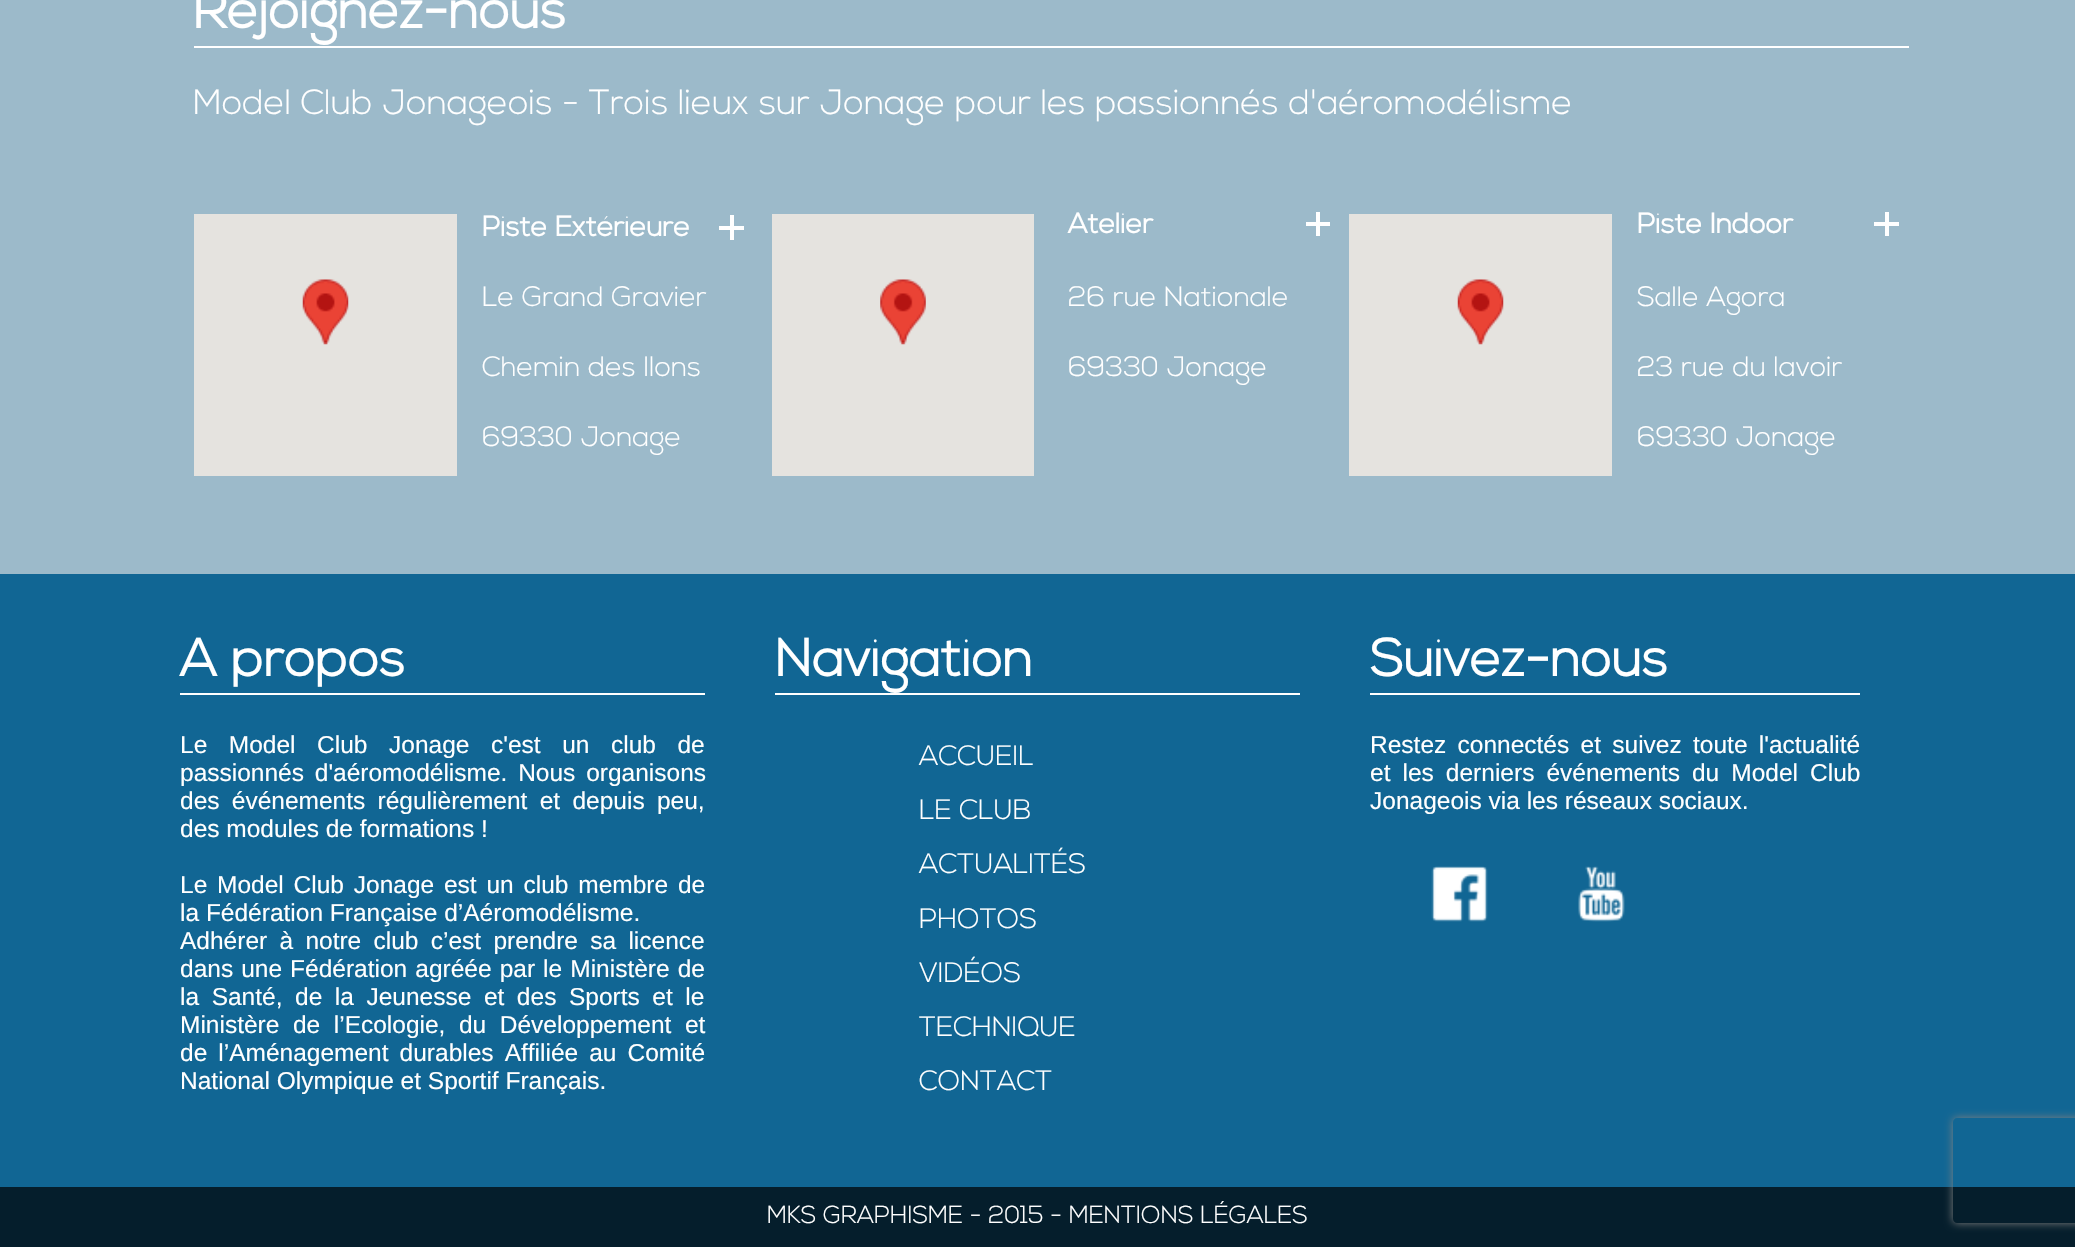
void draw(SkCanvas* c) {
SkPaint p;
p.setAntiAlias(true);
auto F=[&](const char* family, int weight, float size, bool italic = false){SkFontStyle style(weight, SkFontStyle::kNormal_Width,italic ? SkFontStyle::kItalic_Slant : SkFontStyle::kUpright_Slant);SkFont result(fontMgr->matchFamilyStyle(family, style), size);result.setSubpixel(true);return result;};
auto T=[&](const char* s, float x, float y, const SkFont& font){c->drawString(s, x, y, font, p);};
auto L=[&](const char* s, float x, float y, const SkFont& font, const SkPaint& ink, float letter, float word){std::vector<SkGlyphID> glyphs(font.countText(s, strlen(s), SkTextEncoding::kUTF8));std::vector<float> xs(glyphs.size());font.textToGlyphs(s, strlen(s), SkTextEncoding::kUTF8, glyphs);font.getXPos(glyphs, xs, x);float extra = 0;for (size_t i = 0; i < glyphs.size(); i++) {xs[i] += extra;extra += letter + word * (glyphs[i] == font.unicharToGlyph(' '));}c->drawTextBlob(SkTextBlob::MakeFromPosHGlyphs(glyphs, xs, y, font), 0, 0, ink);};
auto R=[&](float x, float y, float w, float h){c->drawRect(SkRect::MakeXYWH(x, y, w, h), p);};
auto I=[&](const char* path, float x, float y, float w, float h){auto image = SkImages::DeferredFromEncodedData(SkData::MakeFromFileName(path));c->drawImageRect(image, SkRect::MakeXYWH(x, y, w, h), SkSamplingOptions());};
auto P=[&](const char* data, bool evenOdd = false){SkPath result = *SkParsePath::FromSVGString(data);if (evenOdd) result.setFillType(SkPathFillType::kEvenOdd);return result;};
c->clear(0xff9cbaca);
p.setColor(0xffffffff);
R(194,46,1715,2);
auto f1 = F("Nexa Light",700,52.5);
T("Rejoignez-nous",193,28,f1);
auto f2 = F("Nexa Light",300,35);
T("Model Club Jonageois - Trois lieux sur Jonage pour les passionnés d'aéromodélisme",193,114,f2);
auto f3 = F("Nexa Light",700,28);
T("Piste Extérieure",482,236,f3);
R(730,215,4,25);
R(719,226,25,4);
T("Atelier",1068,233,f3);
R(1316,212,4,24);
R(1306,222,24,4);
T("Piste Indoor",1637,233,f3);
R(1885,212,4,24);
R(1874,222,25,4);
auto f4 = F("Nexa Light",300,28);
T("Le Grand Gravier",482,306,f4);
T("Chemin des Ilons",482,376,f4);
T("69330 Jonage",482,446,f4);
T("26 rue Nationale",1068,306,f4);
T("69330 Jonage",1068,376,f4);
T("Salle Agora",1637,306,f4);
T("23 rue du lavoir",1637,376,f4);
T("69330 Jonage",1637,446,f4);
p.setColor(0xffe5e3df);
R(194,214,263,262);
I("1.png",302,279,47,66);
R(772,214,262,262);
I("2.png",880,279,46,66);
R(1349,214,263,262);
I("1.png",1457,279,47,66);
p.setColor(0xff116694);
R(0,574,2075,613);
p.setColor(0xffffffff);
R(180,693,525,2);
T("A propos",180,676,f1);
auto f5 = F("Liberation Sans",400,24.5);
L("Le Model Club Jonage c'est un club de",180,753,f5,p,0,14.75);
L("passionnés d'aéromodélisme. Nous organisons",180,781,f5,p,0,4);
L("des événements régulièrement et depuis peu,",180,809,f5,p,0,5.5);
T("des modules de formations !",180,837,f5);
L("Le Model Club Jonage est un club membre de",180,893,f5,p,0,3);
T("la Fédération Française d’Aéromodélisme.",180,921,f5);
L("Adhérer à notre club c’est prendre sa licence",180,949,f5,p,0,5.5);
L("dans une Fédération agréée par le Ministère de",180,977,f5,p,0,1.25);
L("la Santé, de la Jeunesse et des Sports et le",180,1005,f5,p,0,5.75);
L("Ministère de l’Ecologie, du Développement et",180,1033,f5,p,0,6.75);
L("de l’Aménagement durables Affiliée au Comité",180,1061,f5,p,0,4.25);
T("National Olympique et Sportif Français.",180,1089,f5);
R(775,693,525,2);
T("Navigation",775,676,f1);
T("ACCUEIL",919,765,f4);
T("LE CLUB",919,819,f4);
T("ACTUALITÉS",919,873,f4);
T("PHOTOS",919,928,f4);
T("VIDÉOS",919,982,f4);
T("TECHNIQUE",919,1036,f4);
T("CONTACT",919,1090,f4);
R(1370,693,490,2);
T("Suivez-nous",1370,676,f1);
L("Restez connectés et suivez toute l'actualité",1370,753,f5,p,0,4.5);
L("et les derniers événements du Model Club",1370,781,f5,p,0,5.25);
T("Jonageois via les réseaux sociaux.",1370,809,f5);
I("3.png",1431,866,57,56);
I("4.png",1578,866,47,56);
p.setColor(0xff051e2c);
R(0,1187,2075,60);
auto f6 = F("Nexa Light",300,24.5);
p.setColor(0xffffffff);
T("MKS GRAPHISME - 2015 - MENTIONS LÉGALES",767,1223,f6);
c->save();
c->clipPath(P("M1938 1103h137v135h-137zm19 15h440c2 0 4 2 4 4v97c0 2-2 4-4 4h-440c-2 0-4-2-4-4v-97c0-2 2-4 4-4z",true),true);
p.setColor(0xff808080);
p.setMaskFilter(SkMaskFilter::MakeBlur(kNormal_SkBlurStyle, 4.5));
c->drawRoundRect(SkRect::MakeXYWH(1953,1118,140,105),4,4,p);
p.setMaskFilter(nullptr);
c->restore();
}
